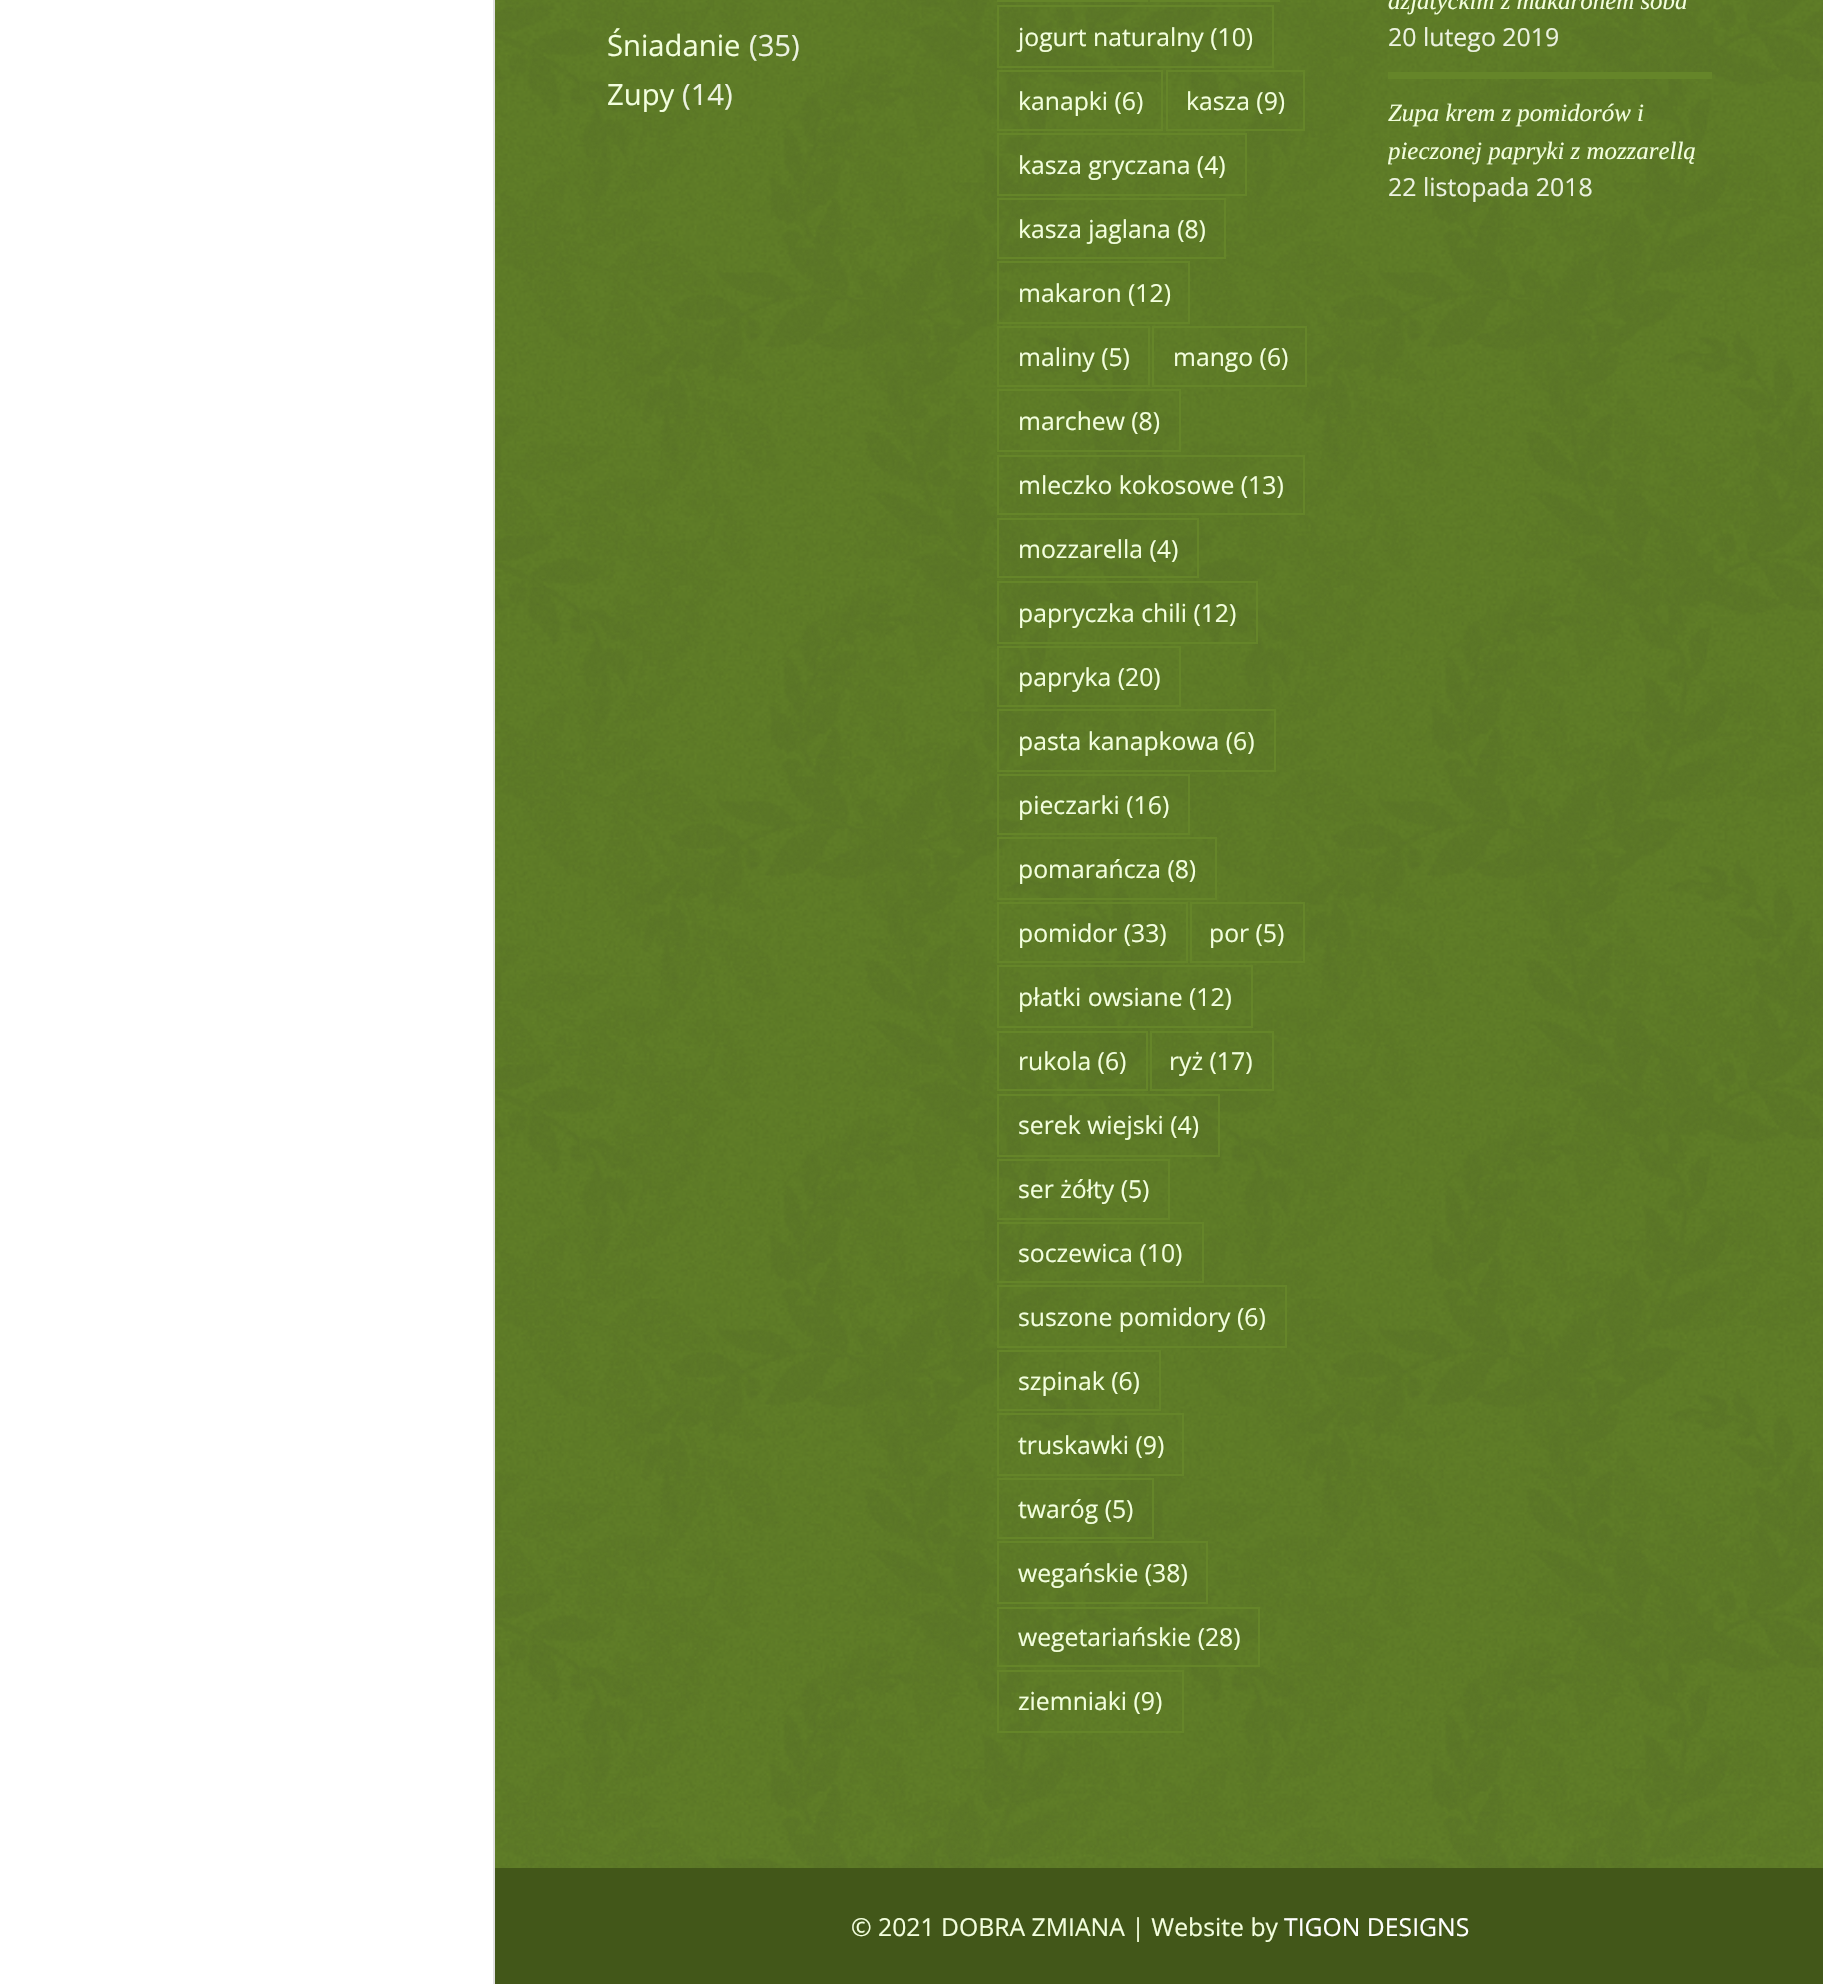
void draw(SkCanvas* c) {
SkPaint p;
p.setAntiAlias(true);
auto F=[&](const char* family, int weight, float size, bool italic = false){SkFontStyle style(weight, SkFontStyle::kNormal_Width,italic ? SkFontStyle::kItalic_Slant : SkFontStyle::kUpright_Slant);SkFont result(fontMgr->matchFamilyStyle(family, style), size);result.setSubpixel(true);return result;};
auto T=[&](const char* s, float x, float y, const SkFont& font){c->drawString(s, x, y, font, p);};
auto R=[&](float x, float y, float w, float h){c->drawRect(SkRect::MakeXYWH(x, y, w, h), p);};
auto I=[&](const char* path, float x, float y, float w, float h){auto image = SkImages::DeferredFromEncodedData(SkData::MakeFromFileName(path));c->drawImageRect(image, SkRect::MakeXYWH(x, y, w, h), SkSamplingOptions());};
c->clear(0xffffffff);
p.setColor(0xffe1e1e1);
R(493,0,2,1984);
p.setColor(0xff658529);
R(495,0,1328,1868);
I("1.png",495,0,1328,1868);
auto f1 = F("Open Sans",400,29.25);
p.setColor(0xfff3ffde);
T("Śniadanie",607,56,f1);
p.setColor(0xffecf2e1);
T("(35)",749,56,f1);
p.setColor(0xfff3ffde);
T("Zupy",607,105,f1);
p.setColor(0xffecf2e1);
T("(14)",682,105,f1);
p.setStroke(true);
p.setStrokeWidth(2);
p.setColor(0xff658529);
c->drawRect(SkRect::MakeXYWH(998,-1,149,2),p);
c->drawRect(SkRect::MakeXYWH(1151,-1,128,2),p);
c->drawRect(SkRect::MakeXYWH(998,6,275,61),p);
auto f2 = F("Open Sans",400,24.75);
p.setStroke(false);
p.setColor(0xfff3ffde);
T("jogurt naturalny (10)",1018,46,f2);
p.setStroke(true);
p.setColor(0xff658529);
c->drawRect(SkRect::MakeXYWH(998,71,164,59),p);
p.setStroke(false);
p.setColor(0xfff3ffde);
T("kanapki (6)",1018,110,f2);
p.setStroke(true);
p.setColor(0xff658529);
c->drawRect(SkRect::MakeXYWH(1167,71,137,59),p);
p.setStroke(false);
p.setColor(0xfff3ffde);
T("kasza (9)",1186,110,f2);
p.setStroke(true);
p.setColor(0xff658529);
c->drawRect(SkRect::MakeXYWH(998,134,248,61),p);
p.setStroke(false);
p.setColor(0xfff3ffde);
T("kasza gryczana (4)",1018,174,f2);
p.setStroke(true);
p.setColor(0xff658529);
c->drawRect(SkRect::MakeXYWH(998,199,227,59),p);
p.setStroke(false);
p.setColor(0xfff3ffde);
T("kasza jaglana (8)",1018,238,f2);
p.setStroke(true);
p.setColor(0xff658529);
c->drawRect(SkRect::MakeXYWH(998,262,191,61),p);
p.setStroke(false);
p.setColor(0xfff3ffde);
T("makaron (12)",1018,302,f2);
p.setStroke(true);
p.setColor(0xff658529);
c->drawRect(SkRect::MakeXYWH(998,327,151,59),p);
p.setStroke(false);
p.setColor(0xfff3ffde);
T("maliny (5)",1018,366,f2);
p.setStroke(true);
p.setColor(0xff658529);
c->drawRect(SkRect::MakeXYWH(1153,327,153,59),p);
p.setStroke(false);
p.setColor(0xfff3ffde);
T("mango (6)",1173,366,f2);
p.setStroke(true);
p.setColor(0xff658529);
c->drawRect(SkRect::MakeXYWH(998,390,182,61),p);
p.setStroke(false);
p.setColor(0xfff3ffde);
T("marchew (8)",1018,430,f2);
p.setStroke(true);
p.setColor(0xff658529);
c->drawRect(SkRect::MakeXYWH(998,456,306,58),p);
p.setStroke(false);
p.setColor(0xfff3ffde);
T("mleczko kokosowe (13)",1018,494,f2);
p.setStroke(true);
p.setColor(0xff658529);
c->drawRect(SkRect::MakeXYWH(998,519,200,58),p);
p.setStroke(false);
p.setColor(0xfff3ffde);
T("mozzarella (4)",1018,558,f2);
p.setStroke(true);
p.setColor(0xff658529);
c->drawRect(SkRect::MakeXYWH(998,582,259,61),p);
p.setStroke(false);
p.setColor(0xfff3ffde);
T("papryczka chili (12)",1018,622,f2);
p.setStroke(true);
p.setColor(0xff658529);
c->drawRect(SkRect::MakeXYWH(998,647,182,59),p);
p.setStroke(false);
p.setColor(0xfff3ffde);
T("papryka (20)",1018,686,f2);
p.setStroke(true);
p.setColor(0xff658529);
c->drawRect(SkRect::MakeXYWH(998,710,277,61),p);
p.setStroke(false);
p.setColor(0xfff3ffde);
T("pasta kanapkowa (6)",1018,750,f2);
p.setStroke(true);
p.setColor(0xff658529);
c->drawRect(SkRect::MakeXYWH(998,775,191,59),p);
p.setStroke(false);
p.setColor(0xfff3ffde);
T("pieczarki (16)",1018,814,f2);
p.setStroke(true);
p.setColor(0xff658529);
c->drawRect(SkRect::MakeXYWH(998,838,218,61),p);
p.setStroke(false);
p.setColor(0xfff3ffde);
T("pomarańcza (8)",1018,878,f2);
p.setStroke(true);
p.setColor(0xff658529);
c->drawRect(SkRect::MakeXYWH(998,903,189,59),p);
p.setStroke(false);
p.setColor(0xfff3ffde);
T("pomidor (33)",1018,942,f2);
p.setStroke(true);
p.setColor(0xff658529);
c->drawRect(SkRect::MakeXYWH(1191,903,113,59),p);
p.setStroke(false);
p.setColor(0xfff3ffde);
T("por (5)",1209,942,f2);
p.setStroke(true);
p.setColor(0xff658529);
c->drawRect(SkRect::MakeXYWH(998,966,254,61),p);
p.setStroke(false);
p.setColor(0xfff3ffde);
T("płatki owsiane (12)",1018,1006,f2);
p.setStroke(true);
p.setColor(0xff658529);
c->drawRect(SkRect::MakeXYWH(998,1032,149,58),p);
p.setStroke(false);
p.setColor(0xfff3ffde);
T("rukola (6)",1018,1070,f2);
p.setStroke(true);
p.setColor(0xff658529);
c->drawRect(SkRect::MakeXYWH(1151,1032,122,58),p);
p.setStroke(false);
p.setColor(0xfff3ffde);
T("ryż (17)",1169,1070,f2);
p.setStroke(true);
p.setColor(0xff658529);
c->drawRect(SkRect::MakeXYWH(998,1095,221,61),p);
p.setStroke(false);
p.setColor(0xfff3ffde);
T("serek wiejski (4)",1018,1134,f2);
p.setStroke(true);
p.setColor(0xff658529);
c->drawRect(SkRect::MakeXYWH(998,1160,171,59),p);
p.setStroke(false);
p.setColor(0xfff3ffde);
T("ser żółty (5)",1018,1198,f2);
p.setStroke(true);
p.setColor(0xff658529);
c->drawRect(SkRect::MakeXYWH(998,1223,205,59),p);
p.setStroke(false);
p.setColor(0xfff3ffde);
T("soczewica (10)",1018,1262,f2);
p.setStroke(true);
p.setColor(0xff658529);
c->drawRect(SkRect::MakeXYWH(998,1286,288,61),p);
p.setStroke(false);
p.setColor(0xfff3ffde);
T("suszone pomidory (6)",1018,1326,f2);
p.setStroke(true);
p.setColor(0xff658529);
c->drawRect(SkRect::MakeXYWH(998,1351,162,59),p);
p.setStroke(false);
p.setColor(0xfff3ffde);
T("szpinak (6)",1018,1390,f2);
p.setStroke(true);
p.setColor(0xff658529);
c->drawRect(SkRect::MakeXYWH(998,1414,185,61),p);
p.setStroke(false);
p.setColor(0xfff3ffde);
T("truskawki (9)",1018,1454,f2);
p.setStroke(true);
p.setColor(0xff658529);
c->drawRect(SkRect::MakeXYWH(998,1479,155,59),p);
p.setStroke(false);
p.setColor(0xfff3ffde);
T("twaróg (5)",1018,1518,f2);
p.setStroke(true);
p.setColor(0xff658529);
c->drawRect(SkRect::MakeXYWH(998,1542,209,61),p);
p.setStroke(false);
p.setColor(0xfff3ffde);
T("wegańskie (38)",1018,1582,f2);
p.setStroke(true);
p.setColor(0xff658529);
c->drawRect(SkRect::MakeXYWH(998,1608,261,58),p);
p.setStroke(false);
p.setColor(0xfff3ffde);
T("wegetariańskie (28)",1018,1646,f2);
p.setStroke(true);
p.setColor(0xff658529);
c->drawRect(SkRect::MakeXYWH(998,1671,185,61),p);
p.setStroke(false);
p.setColor(0xfff3ffde);
T("ziemniaki (9)",1018,1710,f2);
auto f3 = F("Liberation Serif",400,24.9,true);
T("azjatyckim z makaronem soba",1388,9,f3);
auto f4 = F("Open Sans",400,24.9);
p.setColor(0xffecf2e1);
T("20 lutego 2019",1388,46,f4);
p.setColor(0xff658529);
R(1388,72,324,7);
p.setColor(0xfff3ffde);
T("Zupa krem z pomidorów i",1388,121,f3);
c->save();
c->clipRect(SkRect::MakeXYWH(1388,0,324,223));
T("pieczonej papryki z mozzarellą",1388,159,f3);
c->restore();
p.setColor(0xffecf2e1);
T("22 listopada 2018",1388,196,f4);
p.setColor(0xff425719);
R(495,1868,1328,116);
p.setColor(0xfff3ffde);
T("© 2021 DOBRA ZMIANA | Website by",851,1936,f2);
p.setColor(0xffffffff);
T("TIGON DESIGNS",1284,1936,f2);
}
